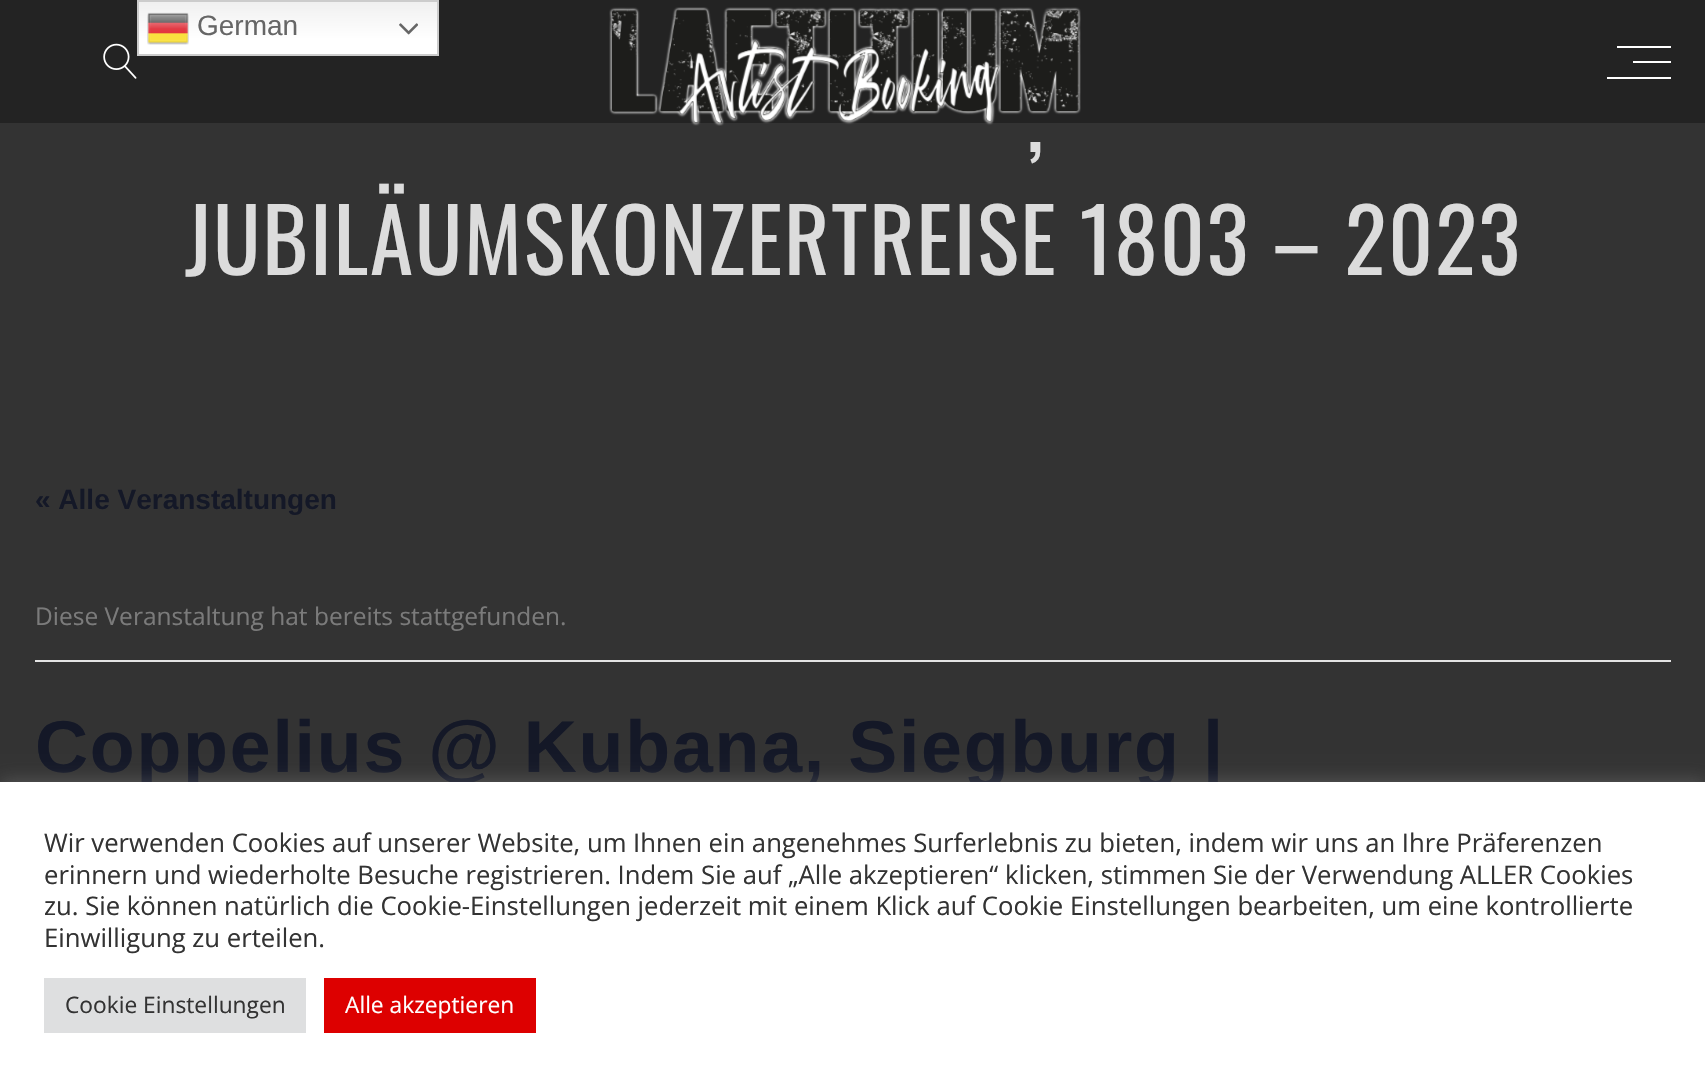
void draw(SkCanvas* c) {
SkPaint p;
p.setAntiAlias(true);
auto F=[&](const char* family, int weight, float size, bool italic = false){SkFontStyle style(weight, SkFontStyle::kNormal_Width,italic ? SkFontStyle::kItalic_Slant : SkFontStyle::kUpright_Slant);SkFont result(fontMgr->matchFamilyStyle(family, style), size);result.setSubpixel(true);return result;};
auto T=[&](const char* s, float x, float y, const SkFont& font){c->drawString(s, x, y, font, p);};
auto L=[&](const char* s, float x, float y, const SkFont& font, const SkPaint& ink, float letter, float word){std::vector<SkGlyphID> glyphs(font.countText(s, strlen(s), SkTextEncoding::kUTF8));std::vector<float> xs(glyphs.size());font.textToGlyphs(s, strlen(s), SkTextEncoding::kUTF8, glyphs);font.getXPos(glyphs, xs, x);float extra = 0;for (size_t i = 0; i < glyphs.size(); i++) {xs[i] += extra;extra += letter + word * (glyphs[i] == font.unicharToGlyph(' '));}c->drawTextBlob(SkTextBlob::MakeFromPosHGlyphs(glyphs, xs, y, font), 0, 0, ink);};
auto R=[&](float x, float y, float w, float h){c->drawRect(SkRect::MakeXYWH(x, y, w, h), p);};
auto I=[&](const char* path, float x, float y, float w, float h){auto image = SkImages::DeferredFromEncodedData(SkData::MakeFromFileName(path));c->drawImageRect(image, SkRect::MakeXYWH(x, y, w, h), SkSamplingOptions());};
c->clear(0xff333333);
p.setColor(0xff232323);
R(0,0,1705,123);
{
const SkColor colors[] = {0xffefefef,0xffffffff};
const float stops[] = {0,.7};
const SkPoint ends[] = {{288,0}, {288,56}};
p.setShader(SkGradientShader::MakeLinear(ends, colors, stops, 2, SkTileMode::kClamp));
p.setAlpha(255);
}
R(139,2,298,52);
p.setStroke(true);
p.setStrokeWidth(2);
p.setShader(nullptr);
p.setColor(0xffcccccc);
c->drawRect(SkRect::MakeXYWH(138,1,300,54),p);
I("1.png",147,12,42,33);
auto f1 = F("Liberation Sans",400,28);
p.setStroke(false);
p.setColor(0xff666666);
T("German",197,35,f1);
I("2.png",399,23,19,12);
I("3.png",103,43,34,36);
I("4.png",609,7,472,119);
p.setColor(0xffffffff);
R(1617,46,54,2);
R(1633,61,38,2);
R(1607,77,64,2);
auto f2 = F("Oswald",400,87.5);
p.setColor(0xffdcdcdc);
L(",",1027,152,f2,p,1.75,0);
L("JUBILÄUMSKONZERTREISE 1803 – 2023",185,275,f2,p,1.75,0);
auto f3 = F("Liberation Sans",700,28);
p.setColor(0xff141827);
T("« Alle Veranstaltungen",35,509,f3);
p.setColor(0xffe4e4e4);
R(35,660,1636,2);
auto f4 = F("Open Sans",400,24.5);
p.setColor(0xff7b7b7b);
T("Diese Veranstaltung hat bereits stattgefunden.",35,625,f4);
auto f5 = F("Liberation Sans",700,73.5);
p.setColor(0xff141827);
L("Coppelius @ Kubana, Siegburg |",35,772,f5,p,1.75,0);
p.setColor(0x4dacabab);
p.setMaskFilter(SkMaskFilter::MakeBlur(kNormal_SkBlurStyle, 9));
c->drawRect(SkRect::MakeXYWH(0,781,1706,302),p);
p.setMaskFilter(nullptr);
p.setColor(0xffffffff);
R(0,782,1705,302);
auto f6 = F("Open Sans",400,25.67);
p.setColor(0xff333333);
T("Wir verwenden Cookies auf unserer Website, um Ihnen ein angenehmes Surferlebnis zu bieten, indem wir uns an Ihre Präferenzen",44,852,f6);
T("erinnern und wiederholte Besuche registrieren. Indem Sie auf „Alle akzeptieren“ klicken, stimmen Sie der Verwendung ALLER Cookies",44,884,f6);
T("zu. Sie können natürlich die Cookie-Einstellungen jederzeit mit einem Klick auf Cookie Einstellungen bearbeiten, um eine kontrollierte",44,915,f6);
T("Einwilligung zu erteilen.",44,947,f6);
p.setColor(0xffdedfe0);
R(44,978,262,55);
auto f7 = F("Open Sans",400,22.75);
p.setColor(0xff333333);
T("Cookie Einstellungen",65,1013,f7);
p.setColor(0xffdd0000);
R(324,978,212,55);
p.setColor(0xffffffff);
T("Alle akzeptieren",345,1013,f7);
}
